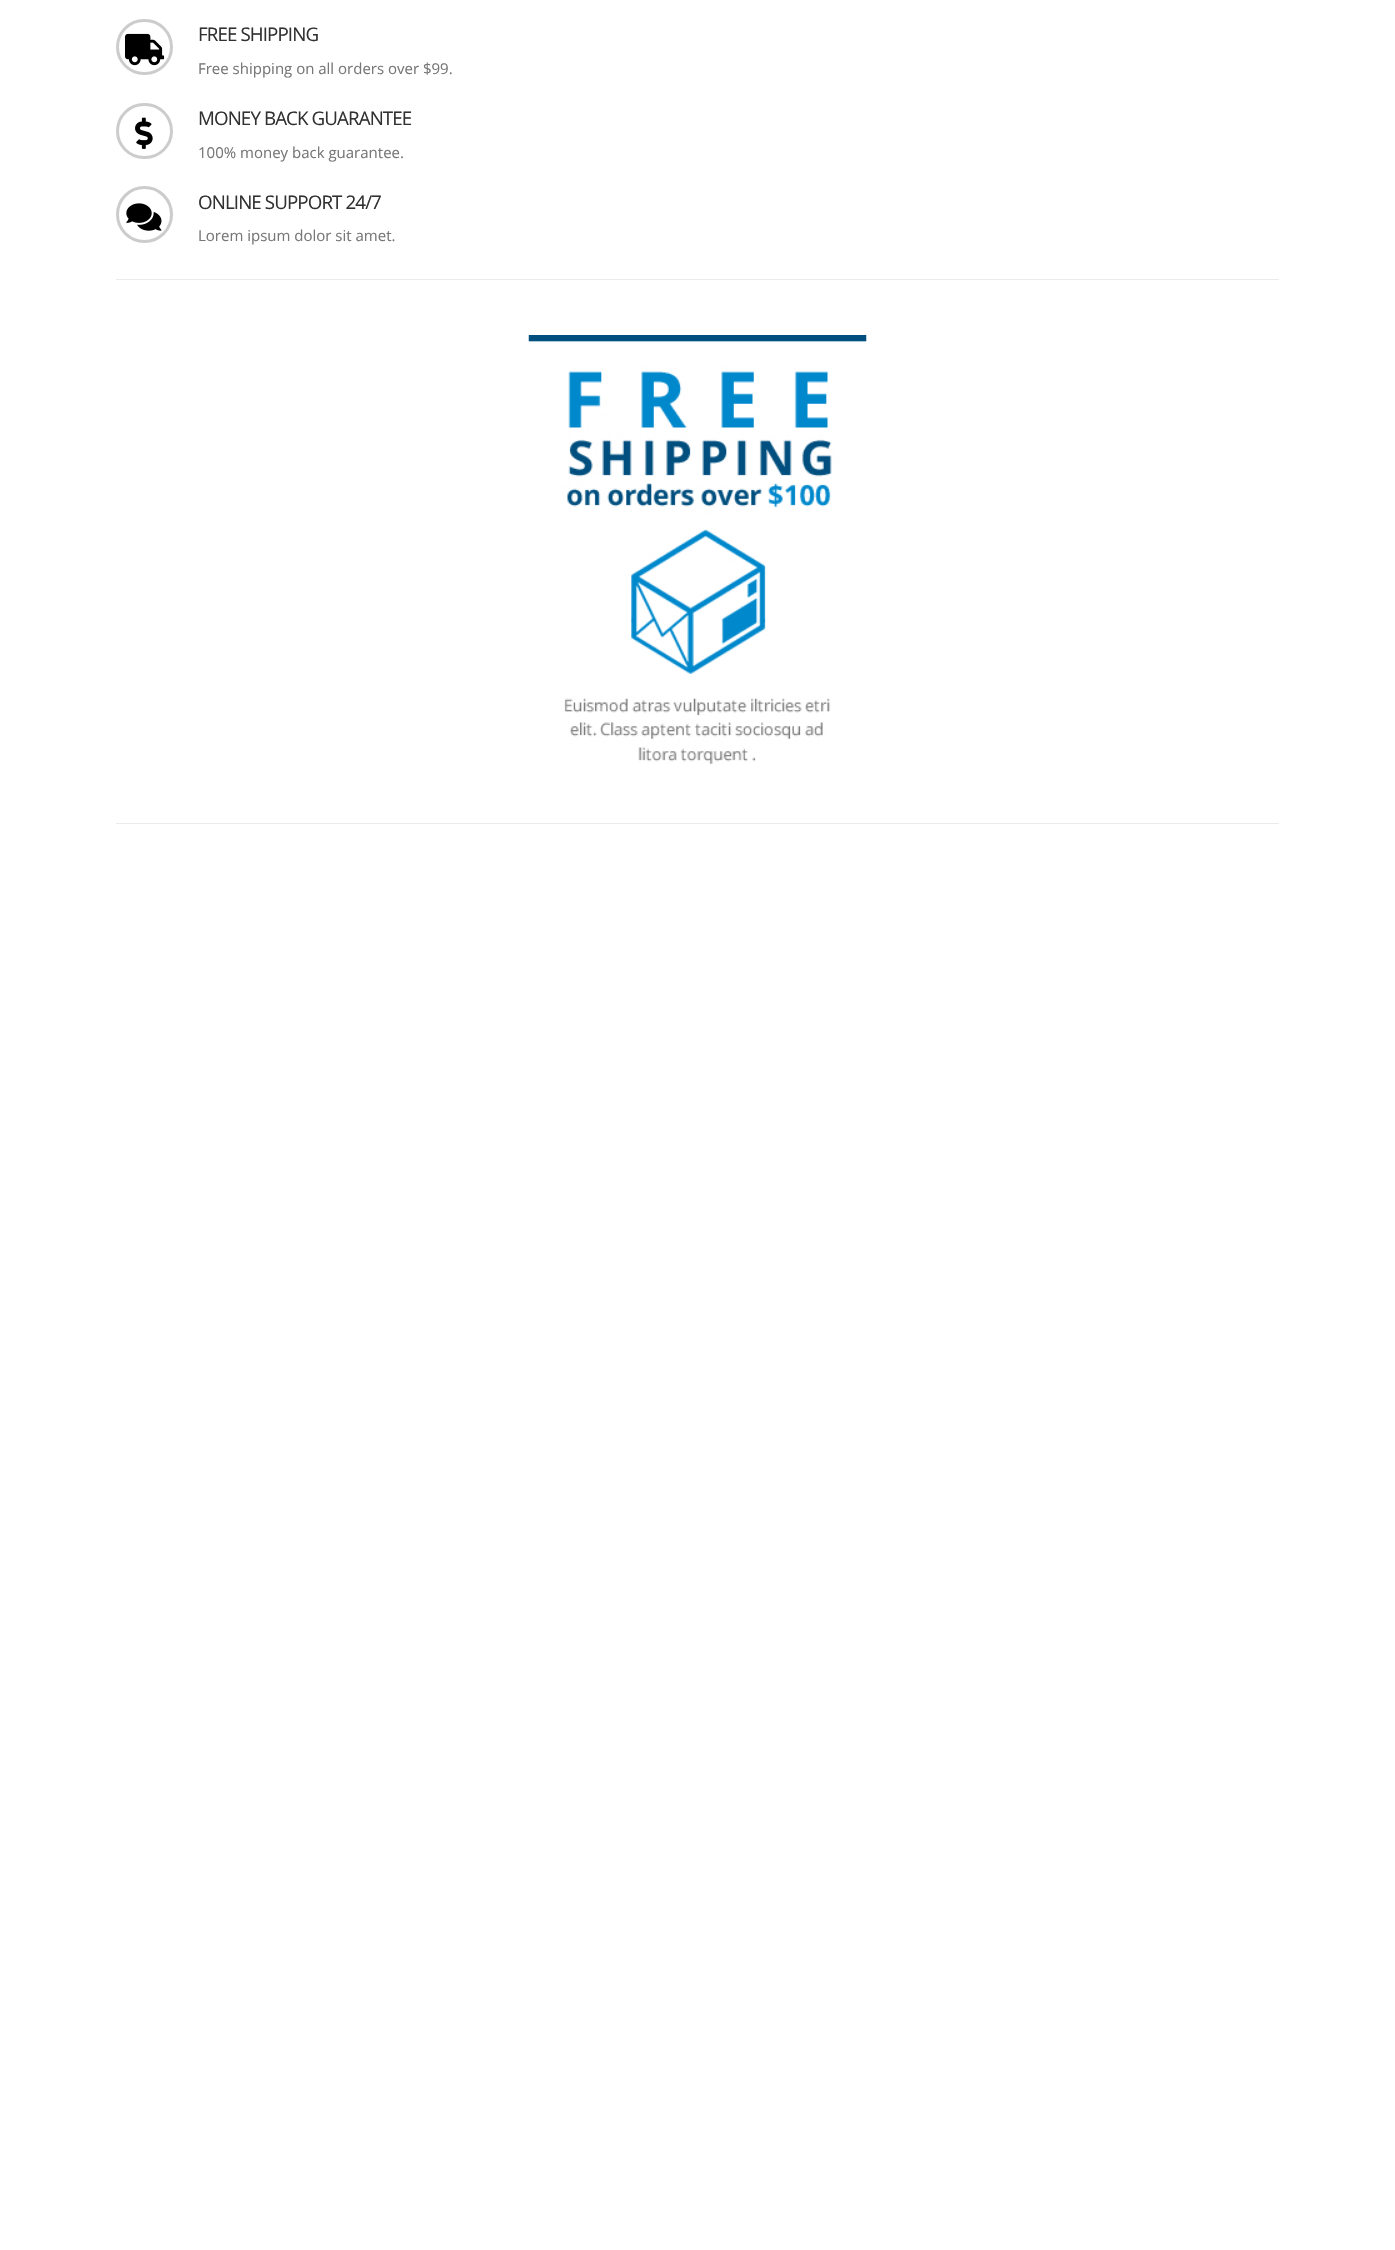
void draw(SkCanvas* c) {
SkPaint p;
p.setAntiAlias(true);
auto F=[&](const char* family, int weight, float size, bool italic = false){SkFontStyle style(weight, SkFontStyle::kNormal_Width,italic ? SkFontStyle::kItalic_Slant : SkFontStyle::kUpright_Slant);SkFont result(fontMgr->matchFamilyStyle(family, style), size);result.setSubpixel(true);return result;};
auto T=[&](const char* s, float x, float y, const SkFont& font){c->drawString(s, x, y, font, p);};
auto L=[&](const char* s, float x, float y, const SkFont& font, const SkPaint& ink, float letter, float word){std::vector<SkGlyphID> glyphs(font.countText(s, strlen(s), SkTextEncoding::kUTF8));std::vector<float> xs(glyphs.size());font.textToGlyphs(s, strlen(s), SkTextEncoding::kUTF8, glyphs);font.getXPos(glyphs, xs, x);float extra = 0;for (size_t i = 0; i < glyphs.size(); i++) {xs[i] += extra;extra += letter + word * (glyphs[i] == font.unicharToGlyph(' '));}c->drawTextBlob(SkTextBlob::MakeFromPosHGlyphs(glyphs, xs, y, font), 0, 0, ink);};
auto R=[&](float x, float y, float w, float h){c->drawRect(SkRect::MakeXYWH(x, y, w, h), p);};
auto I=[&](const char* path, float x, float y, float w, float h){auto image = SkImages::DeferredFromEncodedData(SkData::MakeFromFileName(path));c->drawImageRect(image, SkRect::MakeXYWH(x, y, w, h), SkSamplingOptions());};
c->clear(0xffffffff);
p.setStroke(true);
p.setStrokeWidth(3);
p.setColor(0xffcccccc);
c->drawRoundRect(SkRect::MakeXYWH(117.5,20.5,54,53),26.5,26.5,p);
I("1.png",125,33,40,33);
auto f1 = F("Open Sans",400,18.75);
p.setStroke(false);
p.setColor(0xff313131);
L("FREE SHIPPING",198,41,f1,p,-.9,0);
auto f2 = F("Open Sans",400,15);
p.setColor(0xff777777);
T("Free shipping on all orders over $99.",198,74,f2);
p.setStroke(true);
p.setColor(0xffcccccc);
c->drawRoundRect(SkRect::MakeXYWH(117.5,104.5,54,53),26.5,26.5,p);
I("2.png",135,117,18,32);
p.setStroke(false);
p.setColor(0xff313131);
L("MONEY BACK GUARANTEE",198,125,f1,p,-.9,0);
p.setColor(0xff777777);
T("100% money back guarantee.",198,158,f2);
p.setStroke(true);
p.setColor(0xffcccccc);
c->drawCircle(144.5,214.5,27,p);
I("3.png",126,203,36,28);
p.setStroke(false);
p.setColor(0xff313131);
L("ONLINE SUPPORT 24/7",198,209,f1,p,-.9,0);
p.setColor(0xff777777);
T("Lorem ipsum dolor sit amet.",198,241,f2);
p.setColor(0xffebebeb);
R(116,279,1163,1);
I("4.png",528,335,339,429);
R(116,823,1163,1);
}
